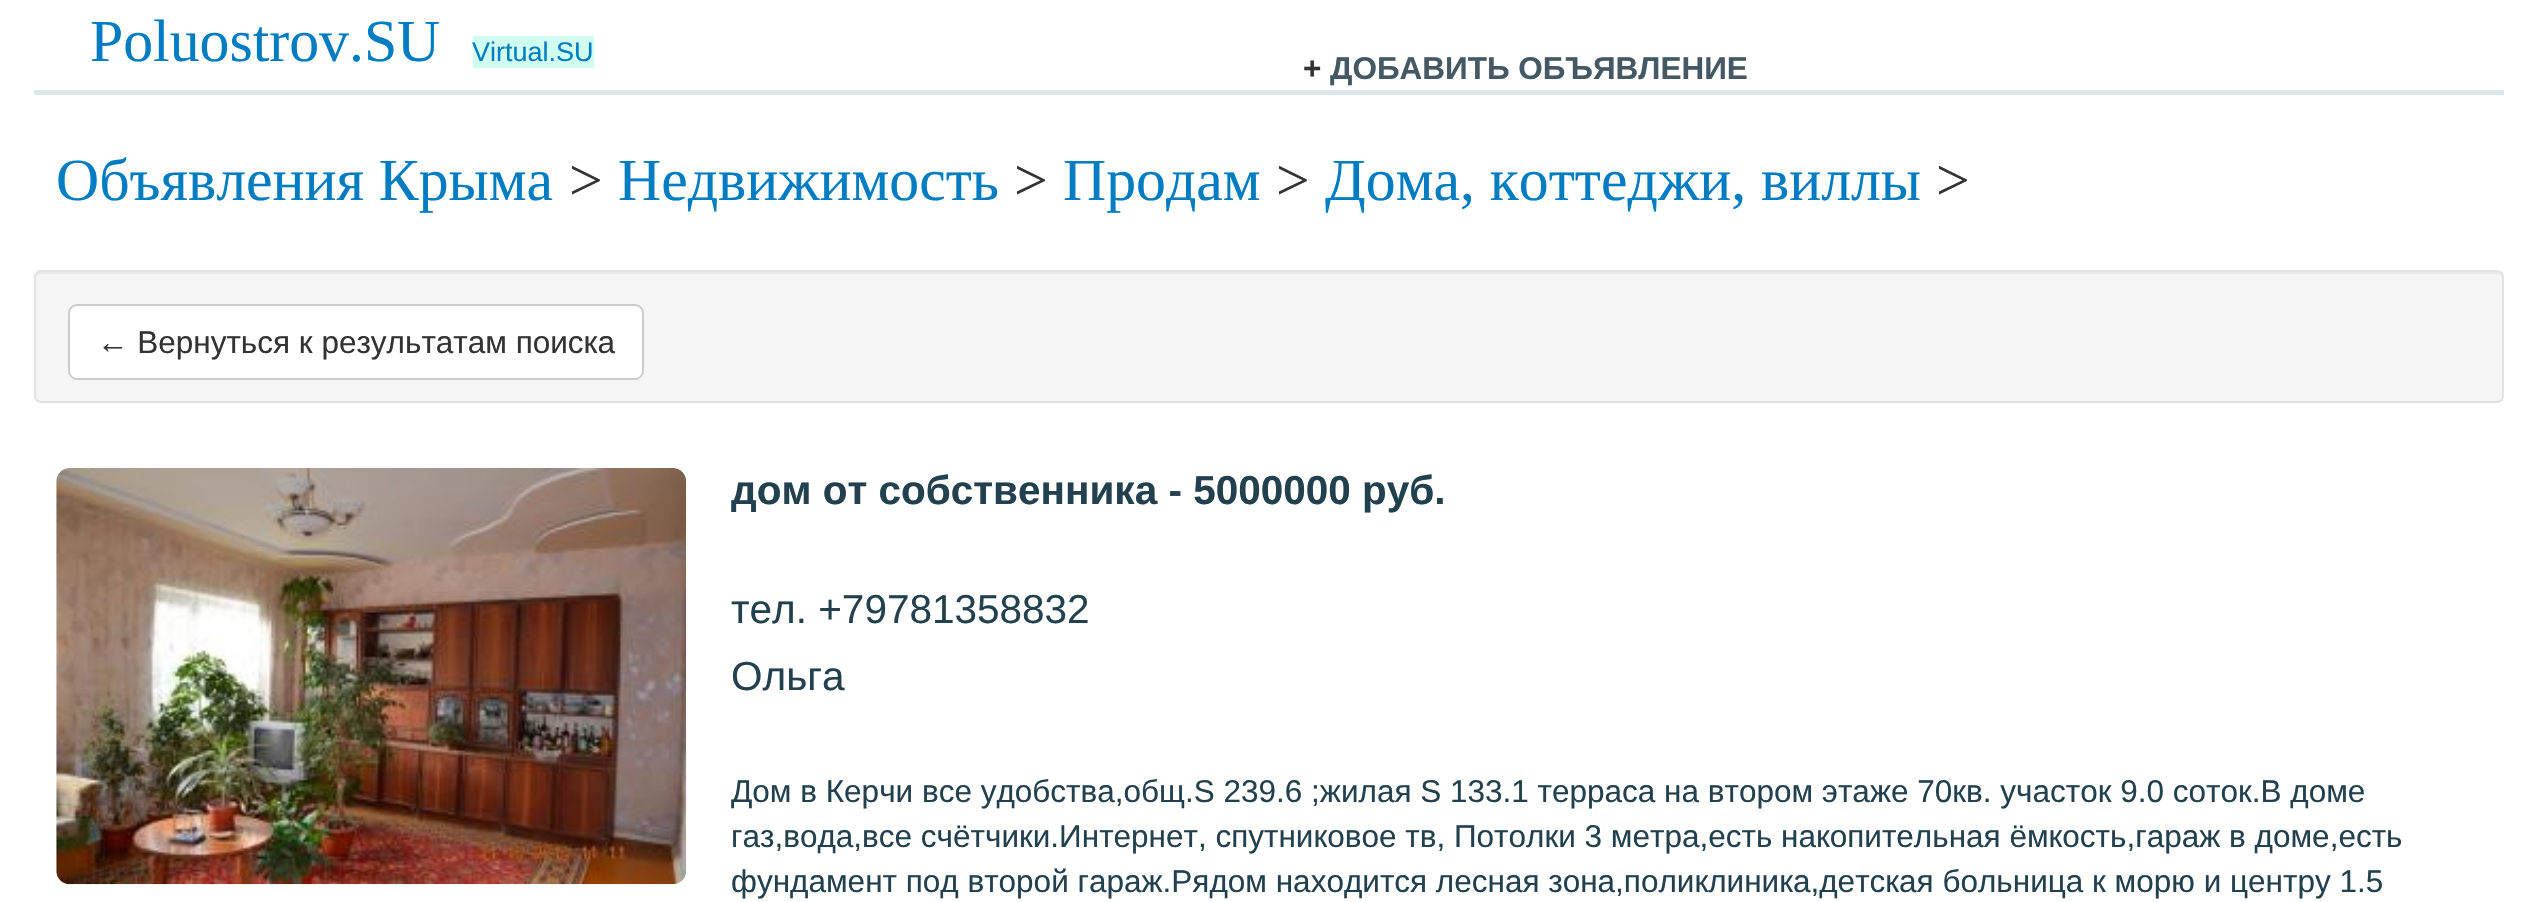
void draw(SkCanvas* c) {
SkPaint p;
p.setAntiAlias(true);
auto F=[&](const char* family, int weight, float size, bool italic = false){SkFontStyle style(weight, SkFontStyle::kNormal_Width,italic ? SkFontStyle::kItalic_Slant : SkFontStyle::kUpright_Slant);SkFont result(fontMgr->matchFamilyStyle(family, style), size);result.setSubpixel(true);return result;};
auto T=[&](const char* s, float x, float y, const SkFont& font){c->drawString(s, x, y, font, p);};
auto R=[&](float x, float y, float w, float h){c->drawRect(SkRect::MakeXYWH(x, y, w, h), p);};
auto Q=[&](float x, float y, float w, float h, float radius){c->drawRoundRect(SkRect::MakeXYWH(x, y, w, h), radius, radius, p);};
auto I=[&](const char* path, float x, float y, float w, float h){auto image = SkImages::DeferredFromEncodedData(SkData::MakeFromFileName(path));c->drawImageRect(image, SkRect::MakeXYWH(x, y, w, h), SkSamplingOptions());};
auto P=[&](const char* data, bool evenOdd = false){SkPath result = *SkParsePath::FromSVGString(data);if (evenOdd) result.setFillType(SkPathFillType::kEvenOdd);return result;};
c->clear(0xffffffff);
auto f1 = F("Liberation Serif",400,59.75);
p.setColor(0xff007dc2);
T("Poluostrov.SU",90,61,f1);
p.setColor(0xffd0fff2);
R(473,36,121,32);
auto f2 = F("Liberation Sans",400,27);
p.setColor(0xff007dc2);
T("Virtual.SU",472,61,f2);
auto f3 = F("Liberation Sans",700,31.5);
p.setColor(0xff333333);
T("+",1303,79,f3);
p.setColor(0xff445964);
T("ДОБАВИТЬ ОБЪЯВЛЕНИЕ",1330,79,f3);
p.setColor(0xffdee6ec);
R(34,90,2470,5);
p.setColor(0xff007dc2);
T("Объявления Крыма",56,200,f1);
p.setColor(0xff333333);
T(">",569,200,f1);
p.setColor(0xff007dc2);
T("Недвижимость",618,200,f1);
p.setColor(0xff333333);
T(">",1014,200,f1);
p.setColor(0xff007dc2);
T("Продам",1063,200,f1);
p.setColor(0xff333333);
T(">",1276,200,f1);
p.setColor(0xff007dc2);
T("Дома, коттеджи, виллы",1325,200,f1);
p.setColor(0xff333333);
T(">",1936,200,f1);
p.setColor(0xfff5f5f5);
Q(34,270,2470,133,7);
p.setColor(0xffe9e9e9);
c->drawPath(P("M40 274h2458c2 0 4 3 4 5v-2c0-3-2-5-5-5h-2456c-3 0-5 2-5 5v2c0-2 2-5 4-5z"),p);
p.setStroke(true);
p.setStrokeWidth(2);
p.setColor(0xffe3e3e3);
c->drawRoundRect(SkRect::MakeXYWH(35,271,2468,131),6,6,p);
p.setStroke(false);
p.setColor(0xffffffff);
c->drawRoundRect(SkRect::MakeXYWH(69,305,574,74),8,8,p);
p.setStroke(true);
p.setColor(0xffcccccc);
c->drawRoundRect(SkRect::MakeXYWH(69,305,574,74),8,8,p);
auto f4 = F("Liberation Sans",400,31.5);
p.setStroke(false);
p.setColor(0xff333333);
T("← Вернуться к результатам поиска",97,353,f4);
I("1.png",56,468,631,417);
auto f5 = F("Liberation Sans",700,40.5);
p.setColor(0xff23404f);
T("дом от собственника - 5000000 руб.",731,504,f5);
auto f6 = F("Liberation Sans",400,40.5);
T("тел. +79781358832",731,623,f6);
T("Ольга",731,690,f6);
T("Дом в Керчи все удобства,общ.S 239.6 ;жилая S 133.1 терраса на втором этаже 70кв. участок 9.0 соток.В доме",731,802,f4);
T("газ,вода,все счётчики.Интернет, спутниковое тв, Потолки 3 метра,есть накопительная ёмкость,гараж в доме,есть",731,847,f4);
T("фундамент под второй гараж.Рядом находится лесная зона,поликлиника,детская больница к морю и центру 1.5",731,892,f4);
}
